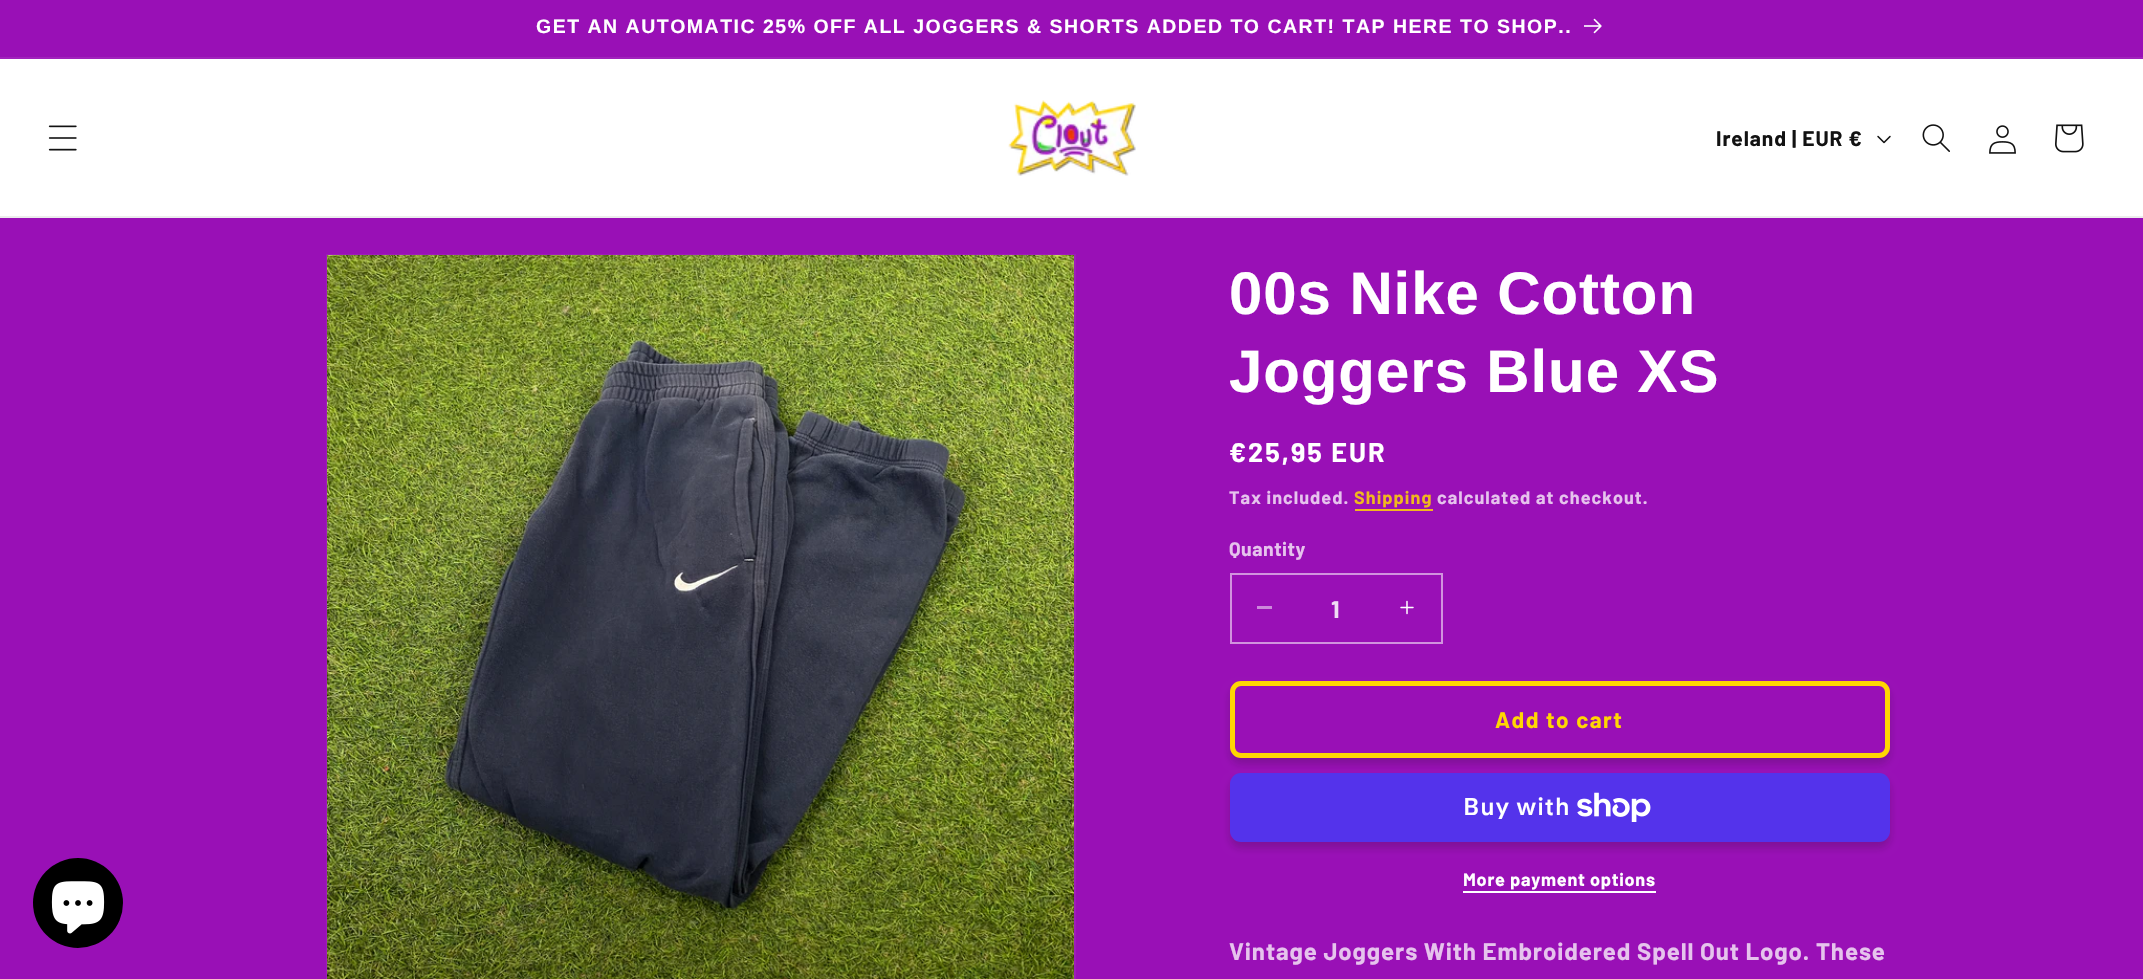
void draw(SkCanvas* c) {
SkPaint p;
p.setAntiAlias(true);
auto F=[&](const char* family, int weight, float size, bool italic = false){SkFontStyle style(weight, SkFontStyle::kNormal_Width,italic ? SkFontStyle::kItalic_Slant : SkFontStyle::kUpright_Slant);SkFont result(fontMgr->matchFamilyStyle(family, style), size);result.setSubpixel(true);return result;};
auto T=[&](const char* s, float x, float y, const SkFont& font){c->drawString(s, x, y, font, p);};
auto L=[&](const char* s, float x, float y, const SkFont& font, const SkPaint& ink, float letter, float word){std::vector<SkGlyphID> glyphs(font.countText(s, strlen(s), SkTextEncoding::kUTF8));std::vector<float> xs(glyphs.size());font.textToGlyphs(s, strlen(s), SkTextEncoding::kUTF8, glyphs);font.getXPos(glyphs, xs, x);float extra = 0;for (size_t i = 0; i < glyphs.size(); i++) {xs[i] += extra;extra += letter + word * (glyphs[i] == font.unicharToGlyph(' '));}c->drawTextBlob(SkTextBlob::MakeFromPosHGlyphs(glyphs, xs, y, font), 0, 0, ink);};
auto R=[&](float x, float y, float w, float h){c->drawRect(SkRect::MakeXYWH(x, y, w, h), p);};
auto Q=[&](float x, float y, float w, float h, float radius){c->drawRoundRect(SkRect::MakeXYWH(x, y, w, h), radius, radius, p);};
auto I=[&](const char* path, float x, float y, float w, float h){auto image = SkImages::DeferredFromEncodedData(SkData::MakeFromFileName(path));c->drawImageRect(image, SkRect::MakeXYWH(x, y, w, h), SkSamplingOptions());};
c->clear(0xff9910b6);
p.setColor(0xffa123bc);
R(0,57,2143,2);
auto f1 = F("Liberation Sans",700,19.5);
p.setColor(0xffffffff);
L("GET AN AUTOMATIC 25% OFF ALL JOGGERS & SHORTS ADDED TO CART! TAP HERE TO SHOP..",536,33,f1,p,1.5,0);
I("1.png",1584,18,18,16);
R(0,59,2143,157);
p.setColor(0xffececec);
R(0,216,2143,2);
I("2.png",48,125,29,26);
I("3.png",1008,100,128,76);
auto f2 = F("Barlow",700,21);
p.setColor(0xff121212);
L("Ireland | EUR €",1716,146,f2,p,.9,0);
I("4.png",1877,135,14,9);
I("5.png",1922,124,28,28);
I("6.png",1989,125,27,29);
I("7.png",2055,124,29,29);
p.setColor(0xff000000);
c->drawCircle(78,903,45,p);
I("8.png",51,881,54,53);
p.setStroke(true);
p.setStrokeWidth(2);
p.setColor(0xff9e1cba);
c->drawRect(SkRect::MakeXYWH(327,255,748,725),p);
I("9.png",327,255,747,724);
auto f3 = F("Liberation Sans",700,60);
p.setStroke(false);
p.setColor(0xffffffff);
L("00s Nike Cotton",1229,314,f3,p,.9,0);
L("Joggers Blue XS",1229,392,f3,p,.9,0);
auto f4 = F("Barlow",700,27);
L("€25,95 EUR",1229,462,f4,p,2,0);
auto f5 = F("Barlow",700,18);
p.setColor(0xffe6c3ed);
L("Tax included.",1229,504,f5,p,1.05,0);
p.setColor(0xfff0b81d);
L("Shipping",1354,504,f5,p,1.05,0);
R(1355,509,78,2);
p.setColor(0xffe6c3ed);
L("calculated at checkout.",1437,504,f5,p,1.05,0);
auto f6 = F("Barlow",700,19.5);
L("Quantity",1229,556,f6,p,.5,0);
p.setColor(0xffcc88db);
R(1257,606,15,3);
I("10.png",1400,600,14,15);
p.setStroke(true);
p.setColor(0xffd193de);
c->drawRect(SkRect::MakeXYWH(1231,574,211,69),p);
auto f7 = F("Barlow",700,24);
p.setStroke(false);
p.setColor(0xfff0dbf4);
T("1",1331,618,f7);
p.setColor(0x33121212);
p.setMaskFilter(SkMaskFilter::MakeBlur(kNormal_SkBlurStyle, 4));
c->drawRoundRect(SkRect::MakeXYWH(1230,687,660,77),11,11,p);
p.setMaskFilter(nullptr);
p.setColor(0xff9910b6);
Q(1230,681,660,77,11);
p.setStroke(true);
p.setStrokeWidth(5);
c->drawRoundRect(SkRect::MakeXYWH(1232.5,683.5,655,72),8.5,8.5,p);
p.setColor(0xffffd602);
c->drawRoundRect(SkRect::MakeXYWH(1232.5,683.5,655,72),8.5,8.5,p);
auto f8 = F("Barlow",700,22.5);
p.setStroke(false);
L("Add to cart",1495,728,f8,p,1.5,0);
p.setColor(0x33121212);
p.setMaskFilter(SkMaskFilter::MakeBlur(kNormal_SkBlurStyle, 4));
c->drawRoundRect(SkRect::MakeXYWH(1230,779,660,69),11,11,p);
p.setMaskFilter(nullptr);
p.setColor(0xff5433eb);
Q(1230,773,660,69,11);
auto f9 = F("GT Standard",600,24);
p.setColor(0xffffffff);
L("Buy with",1463,815,f9,p,.9,0);
I("11.png",1577,792,74,30);
L("More payment options",1463,886,f5,p,.75,0);
R(1463,891,193,2);
p.setColor(0xffe6c3ed);
L("Vintage Joggers With Embroidered Spell Out Logo. These",1229,960,f7,p,.9,0);
}
